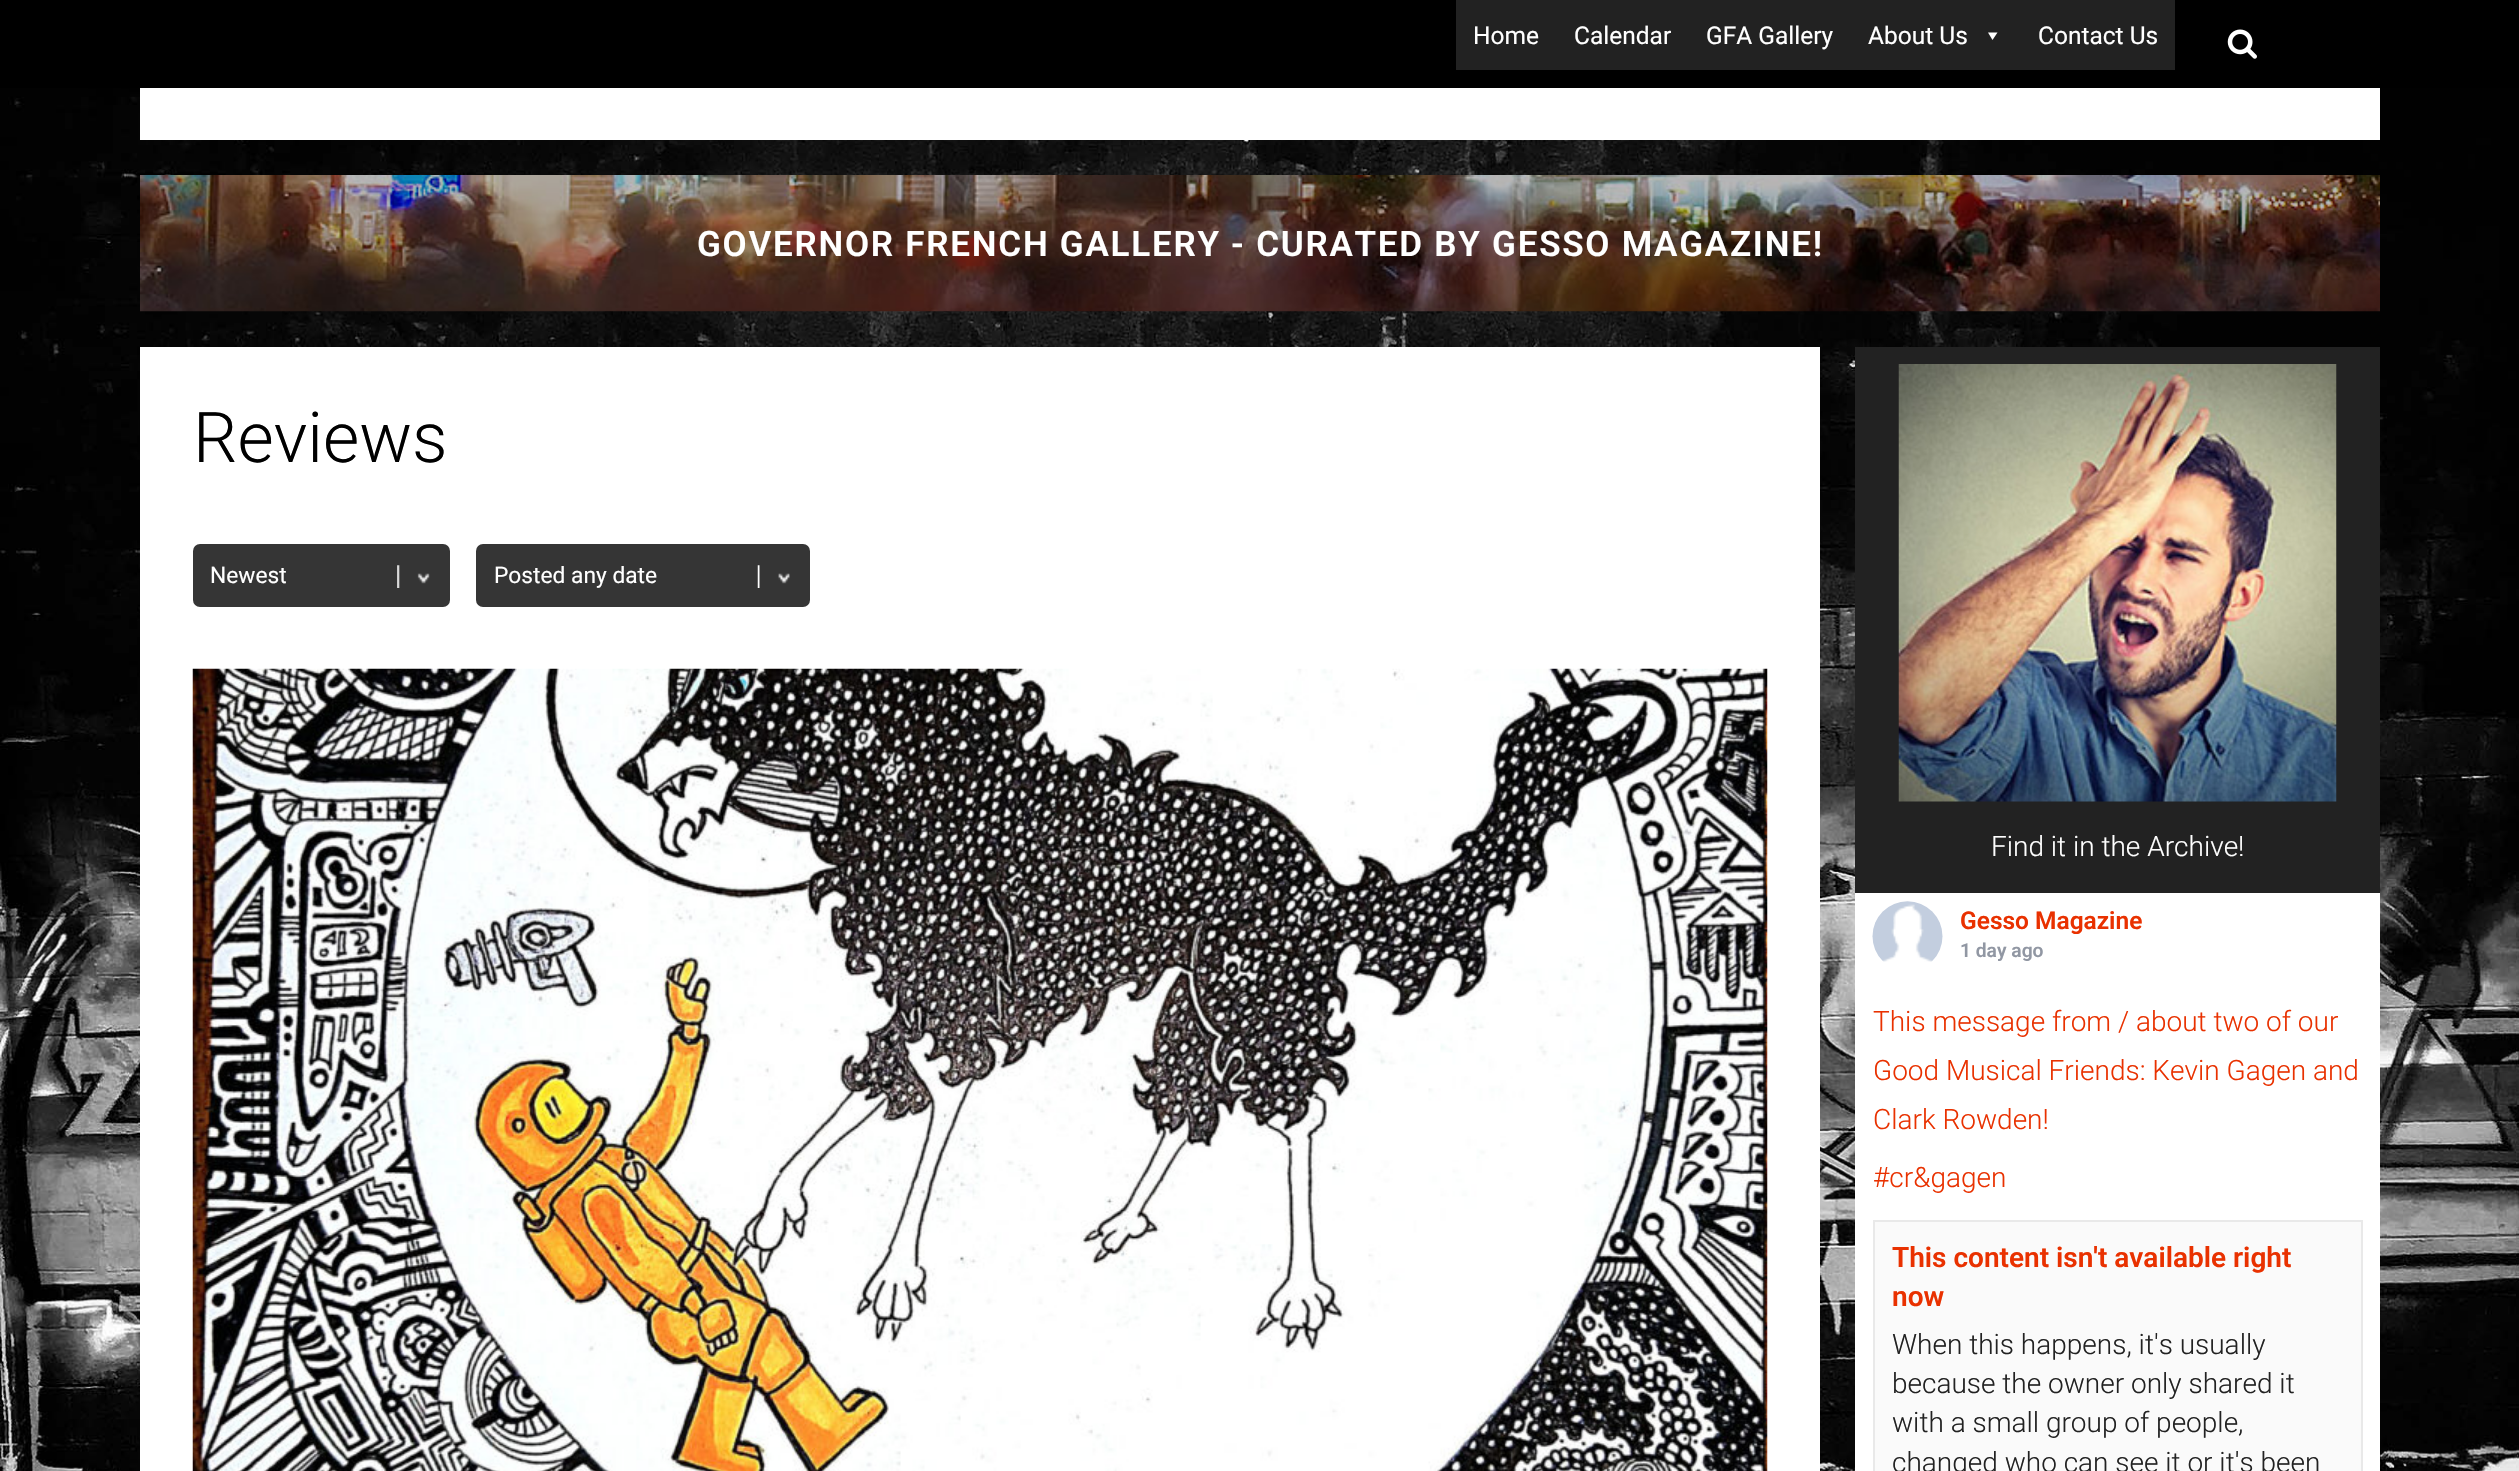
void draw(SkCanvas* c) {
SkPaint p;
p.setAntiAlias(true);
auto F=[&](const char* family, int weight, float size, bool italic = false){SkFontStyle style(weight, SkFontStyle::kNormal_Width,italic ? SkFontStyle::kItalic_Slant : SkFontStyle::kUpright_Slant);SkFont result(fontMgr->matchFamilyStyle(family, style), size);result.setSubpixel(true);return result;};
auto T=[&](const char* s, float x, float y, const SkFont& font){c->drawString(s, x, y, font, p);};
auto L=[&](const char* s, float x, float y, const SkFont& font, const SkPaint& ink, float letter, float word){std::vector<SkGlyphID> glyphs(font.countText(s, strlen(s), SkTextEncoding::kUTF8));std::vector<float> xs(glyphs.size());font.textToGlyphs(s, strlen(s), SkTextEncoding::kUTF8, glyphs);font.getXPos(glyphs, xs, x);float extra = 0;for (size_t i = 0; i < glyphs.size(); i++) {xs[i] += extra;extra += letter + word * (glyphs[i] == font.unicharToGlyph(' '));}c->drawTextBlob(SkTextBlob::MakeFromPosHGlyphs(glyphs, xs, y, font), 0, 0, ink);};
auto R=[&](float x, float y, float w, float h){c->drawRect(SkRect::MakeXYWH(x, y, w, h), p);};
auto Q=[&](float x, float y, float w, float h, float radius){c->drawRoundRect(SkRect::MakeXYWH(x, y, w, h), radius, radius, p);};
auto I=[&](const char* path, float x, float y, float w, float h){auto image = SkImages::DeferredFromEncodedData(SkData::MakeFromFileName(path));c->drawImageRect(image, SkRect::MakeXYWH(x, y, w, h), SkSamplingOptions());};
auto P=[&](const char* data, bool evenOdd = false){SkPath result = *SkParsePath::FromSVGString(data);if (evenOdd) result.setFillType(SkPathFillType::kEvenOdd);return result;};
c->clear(0xffffffff);
I("1.png",0,88,2519,1383);
p.setColor(0xff000000);
R(0,0,2519,88);
p.setColor(0xff222222);
R(1456,0,719,70);
auto f1 = F("Roboto",400,24.5);
p.setColor(0xffffffff);
T("Home",1473,44,f1);
T("Calendar",1574,44,f1);
T("GFA Gallery",1706,44,f1);
T("About Us",1868,44,f1);
c->drawPath(P("M1997.5 32.5l-5 7.5l-4.5-7.5z"),p);
T("Contact Us",2038,44,f1);
I("2.png",2227,29,30,30);
R(140,88,2240,52);
I("3.png",140,175,2240,137);
auto f2 = F("Roboto",600,35);
L("GOVERNOR FRENCH GALLERY - CURATED BY GESSO MAGAZINE!",697,256,f2,p,1.75,0);
R(140,347,1680,1124);
auto f3 = F("Roboto",300,70);
p.setColor(0xff000000);
T("Reviews",193,462,f3);
p.setColor(0xff353535);
Q(193,544,257,63,7);
I("4.png",397,565,33,23);
auto f4 = F("Roboto",400,22.75);
p.setColor(0xffffffff);
T("Newest",210,583,f4);
p.setColor(0xff353535);
Q(476,544,334,63,7);
I("5.png",757,565,33,23);
p.setColor(0xffffffff);
T("Posted any date",494,583,f4);
I("6.png",192,668,1576,803);
p.setColor(0xff222222);
R(1855,347,525,546);
I("7.png",1898,364,439,438);
auto f5 = F("Roboto",300,28);
p.setColor(0xffffffff);
T("Find it in the Archive!",1991,856,f5);
R(1855,893,525,578);
I("8.png",1872,901,71,61);
auto f6 = F("Roboto",600,24.5);
p.setColor(0xffe93100);
T("Gesso Magazine",1960,929,f6);
auto f7 = F("Roboto",600,19.25);
p.setColor(0xff9197a3);
T("1 day ago",1960,957,f7);
p.setColor(0xffe93100);
T("This message from / about two of our",1873,1031,f5);
T("Good Musical Friends: Kevin Gagen and",1873,1080,f5);
T("Clark Rowden!",1873,1129,f5);
T("#cr&gagen",1873,1187,f5);
p.setColor(0xfffafafa);
c->drawRect(SkRect::MakeXYWH(1874,1221,488,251),p);
p.setStroke(true);
p.setStrokeWidth(2);
p.setColor(0xffe9e9e9);
c->drawRect(SkRect::MakeXYWH(1874,1221,488,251),p);
auto f8 = F("Roboto",600,28);
p.setStroke(false);
p.setColor(0xffe93100);
T("This content isn't available right",1892,1267,f8);
T("now",1892,1306,f8);
p.setColor(0xff222222);
T("When this happens, it's usually",1892,1354,f5);
T("because the owner only shared it",1892,1393,f5);
T("with a small group of people,",1892,1432,f5);
T("changed who can see it or it's been",1892,1472,f5);
}
